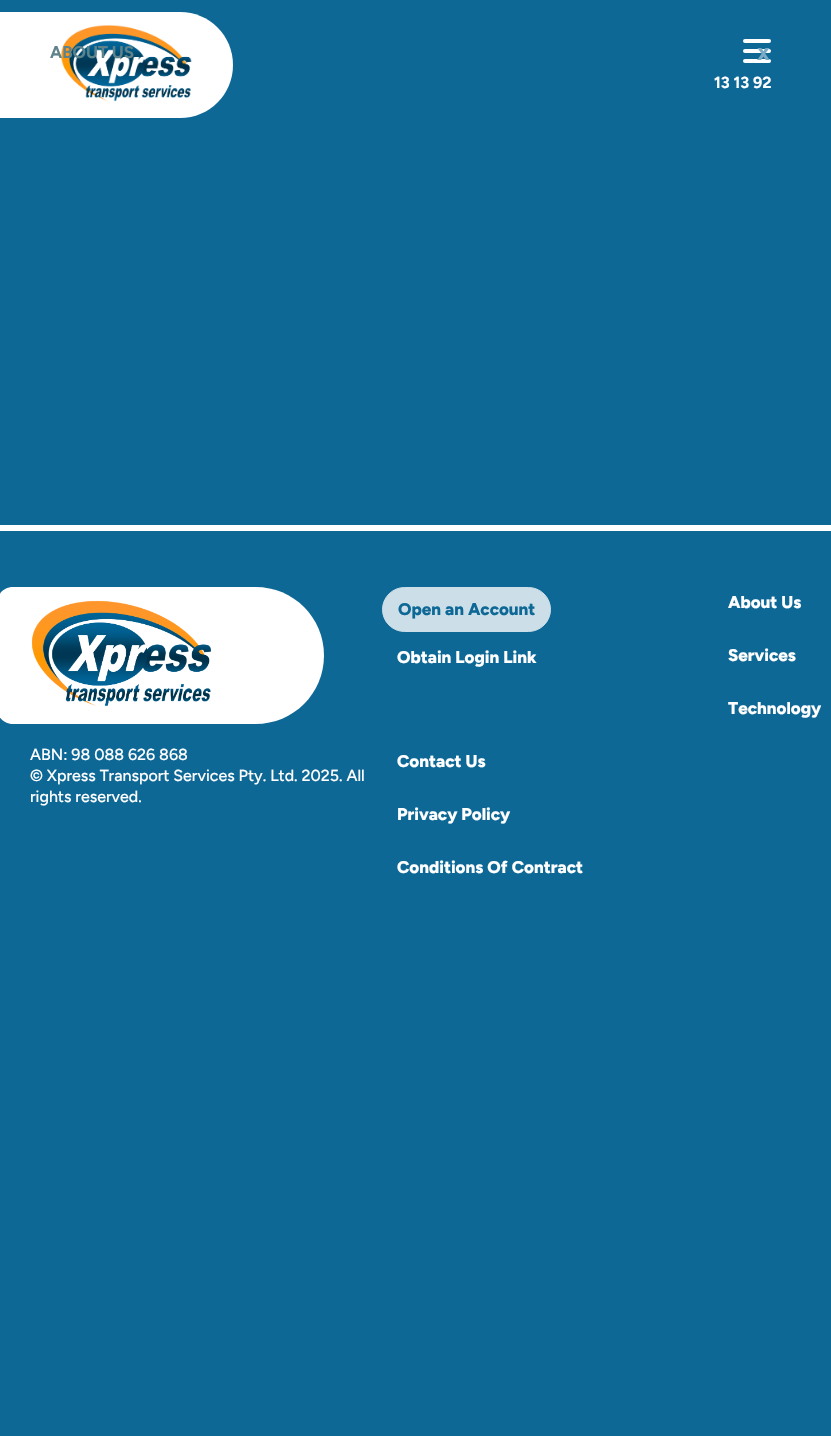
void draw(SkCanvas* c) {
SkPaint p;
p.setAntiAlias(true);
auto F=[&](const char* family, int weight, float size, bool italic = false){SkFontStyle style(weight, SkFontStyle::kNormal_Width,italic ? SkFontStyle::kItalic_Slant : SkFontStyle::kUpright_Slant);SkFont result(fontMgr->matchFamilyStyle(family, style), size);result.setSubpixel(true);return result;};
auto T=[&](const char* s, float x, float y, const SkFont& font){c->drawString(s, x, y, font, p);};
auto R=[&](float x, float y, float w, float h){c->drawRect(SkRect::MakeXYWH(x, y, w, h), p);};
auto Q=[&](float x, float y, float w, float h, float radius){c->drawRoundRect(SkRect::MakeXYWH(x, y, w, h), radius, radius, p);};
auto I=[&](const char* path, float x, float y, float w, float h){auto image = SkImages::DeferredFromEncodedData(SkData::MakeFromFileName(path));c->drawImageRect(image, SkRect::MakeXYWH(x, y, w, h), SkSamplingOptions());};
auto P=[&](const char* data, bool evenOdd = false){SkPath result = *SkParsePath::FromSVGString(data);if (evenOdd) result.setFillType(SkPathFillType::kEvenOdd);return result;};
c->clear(0xff0e6896);
p.setColor(0xffffffff);
c->drawPath(P("M60 12h120c29.5 0 53 23.5 53 53c0 29.5-23.5 53-53 53h-120z"),p);
R(0,12,60,106);
I("1.png",60,25,132,77);
auto f1 = F("Figtree",700,17);
p.setColor(0xff5f838b);
T("ABOUT US",50,58,f1);
p.setColor(0xffffffff);
Q(743,49,28,4,2);
Q(743,59,28,4,2);
auto f2 = F("Figtree",700,24);
p.setColor(0xff7aabc5);
T("x",757,60,f2);
p.setColor(0xffffffff);
Q(743,39,28,4,2);
auto f3 = F("Figtree",700,16);
T("13 13 92",714,88,f3);
R(0,525,831,6);
c->drawPath(P("M30 587h225.5c38 0 68.5 30.5 68.5 68.5c0 38-30.5 68.5-68.5 68.5h-225.5z"),p);
c->drawPath(P("M13 587h17v137h-17c-9 0-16-7-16-16v-105c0-9 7-16 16-16z"),p);
I("2.png",31,600,180,106);
auto f4 = F("Figtree",500,16);
T("ABN: 98 088 626 868",30,760,f4);
T("© Xpress Transport Services Pty. Ltd. 2025. All",30,781,f4);
T("rights reserved.",30,802,f4);
p.setColor(0xffccdfe9);
c->drawRoundRect(SkRect::MakeXYWH(382.5,587.5,168,44),22,22,p);
p.setStroke(true);
p.setStrokeWidth(1);
c->drawRoundRect(SkRect::MakeXYWH(382.5,587.5,168,44),22,22,p);
auto f5 = F("Figtree",800,17);
p.setStroke(false);
p.setColor(0xff0e6896);
T("Open an Account",398,615,f5);
p.setColor(0xffffffff);
T("Obtain Login Link",397,663,f5);
T("About Us",728,608,f5);
T("Services",728,661,f5);
T("Technology",728,714,f5);
T("Contact Us",397,767,f5);
T("Privacy Policy",397,820,f5);
T("Conditions Of Contract",397,873,f5);
}
